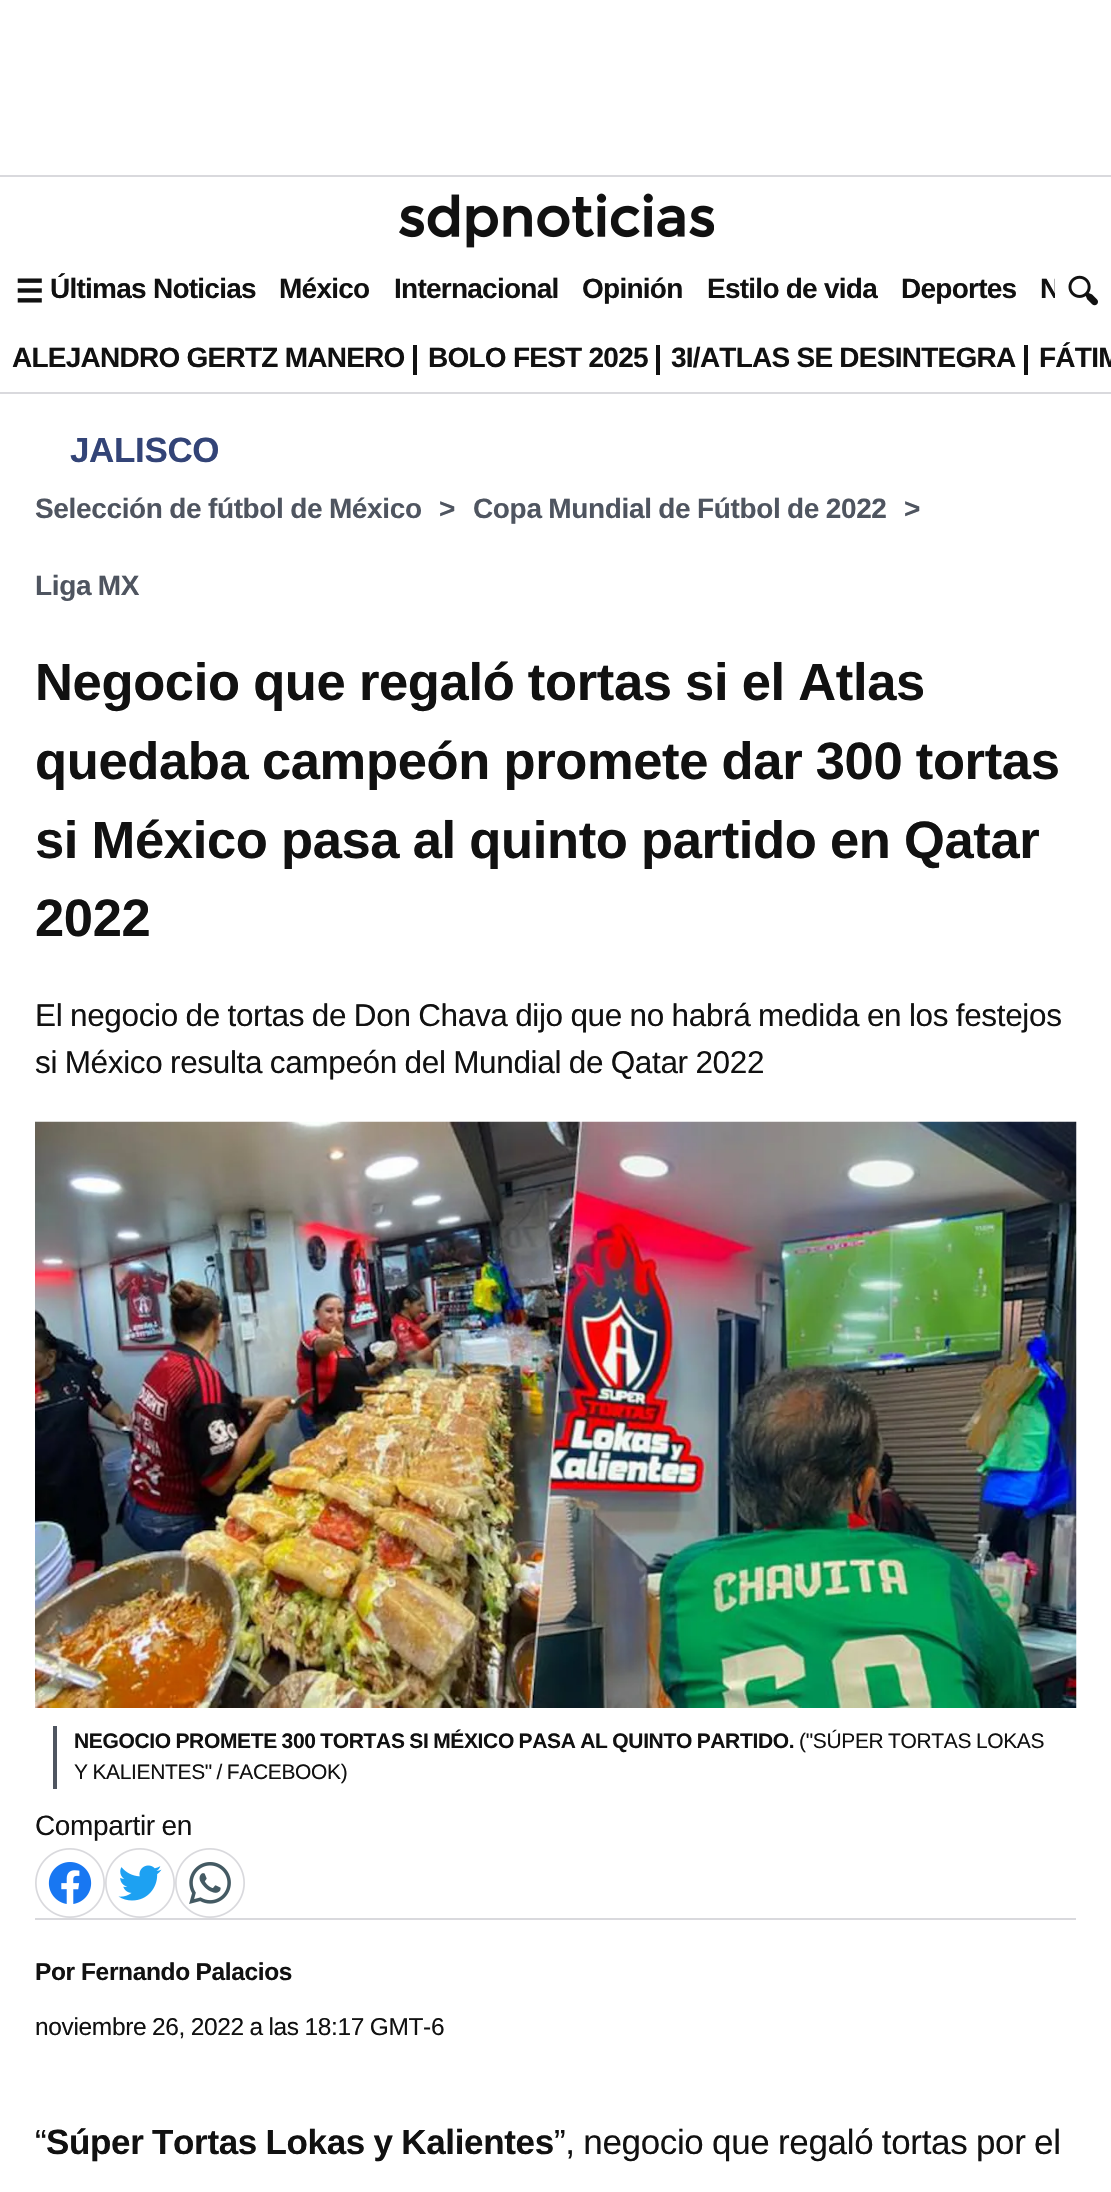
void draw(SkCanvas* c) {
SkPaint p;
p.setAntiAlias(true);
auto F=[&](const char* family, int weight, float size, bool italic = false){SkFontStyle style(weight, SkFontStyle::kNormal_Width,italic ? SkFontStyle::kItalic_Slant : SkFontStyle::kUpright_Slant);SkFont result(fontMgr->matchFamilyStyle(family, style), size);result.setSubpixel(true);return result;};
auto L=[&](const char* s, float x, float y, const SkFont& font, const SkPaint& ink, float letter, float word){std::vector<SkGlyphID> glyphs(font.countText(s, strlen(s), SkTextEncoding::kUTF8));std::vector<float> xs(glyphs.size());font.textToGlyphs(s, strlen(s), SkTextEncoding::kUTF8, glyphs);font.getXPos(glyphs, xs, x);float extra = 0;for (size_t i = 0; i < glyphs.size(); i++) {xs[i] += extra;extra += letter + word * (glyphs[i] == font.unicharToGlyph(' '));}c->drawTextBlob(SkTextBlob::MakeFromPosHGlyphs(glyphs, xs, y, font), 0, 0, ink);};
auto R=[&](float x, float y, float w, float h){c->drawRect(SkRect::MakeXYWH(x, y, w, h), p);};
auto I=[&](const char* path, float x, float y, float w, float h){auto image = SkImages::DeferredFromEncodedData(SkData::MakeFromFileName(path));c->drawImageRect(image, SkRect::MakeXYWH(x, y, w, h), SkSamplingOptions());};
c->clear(0xffffffff);
p.setColor(0xffd9d9dd);
R(0,175,1111,2);
R(0,392,1111,2);
I("1.png",399,193,315,55);
I("2.png",17,278,25,25);
auto f1 = F("Liberation Sans",700,28);
p.setColor(0xff111111);
L("Últimas Noticias",50,298,f1,p,-.75,0);
L("México",279,298,f1,p,-.75,0);
L("Internacional",394,298,f1,p,-.75,0);
L("Opinión",582,298,f1,p,-.75,0);
L("Estilo de vida",707,298,f1,p,-.75,0);
L("Deportes",901,298,f1,p,-.75,0);
c->save();
c->clipRect(SkRect::MakeXYWH(37,259,1018,63));
L("N",1040,298,f1,p,-.75,0);
c->restore();
I("3.png",1068,275,30,31);
L("ALEJANDRO GERTZ MANERO",12,367,f1,p,-.75,0);
R(413,345,4,30);
L("BOLO FEST 2025",428,367,f1,p,-.75,0);
R(656,345,4,30);
L("3I/ATLAS SE DESINTEGRA",671,367,f1,p,-.75,0);
R(1024,345,4,30);
L("FÁTIM",1039,367,f1,p,-.75,0);
auto f2 = F("Liberation Sans",700,35);
p.setColor(0xff334477);
L("JALISCO",70,462,f2,p,-.35,0);
p.setColor(0xff4f5560);
L("Selección de fútbol de México",35,518,f1,p,-.35,-.75);
L(">",439,518,f1,p,-.35,0);
L("Copa Mundial de Fútbol de 2022",473,518,f1,p,-.35,-.75);
L(">",904,518,f1,p,-.35,0);
L("Liga MX",35,595,f1,p,-.35,-.75);
auto f3 = F("Liberation Sans",700,52.5);
p.setColor(0xff111111);
L("Negocio que regaló tortas si el Atlas",35,700,f3,p,-.35,-.75);
L("quedaba campeón promete dar 300 tortas",35,779,f3,p,-.35,-.75);
L("si México pasa al quinto partido en Qatar",35,858,f3,p,-.35,-.75);
L("2022",35,936,f3,p,-.35,0);
auto f4 = F("Liberation Sans",400,31.5);
L("El negocio de tortas de Don Chava dijo que no habrá medida en los festejos",35,1026,f4,p,-.35,-.75);
L("si México resulta campeón del Mundial de Qatar 2022",35,1073,f4,p,-.35,-.75);
I("4.png",35,1121,1042,587);
p.setColor(0xff4f5560);
R(53,1726,4,63);
auto f5 = F("Liberation Sans",700,21);
p.setColor(0xff111111);
L("NEGOCIO PROMETE 300 TORTAS SI MÉXICO PASA AL QUINTO PARTIDO.",74,1748,f5,p,-.35,-.75);
auto f6 = F("Liberation Sans",400,21);
L("(\"SÚPER TORTAS LOKAS",799,1748,f6,p,-.35,-.75);
L("Y KALIENTES\" / FACEBOOK)",74,1779,f6,p,-.35,-.75);
p.setColor(0xffd9d9dd);
R(35,1918,1041,2);
auto f7 = F("Liberation Sans",400,28);
p.setColor(0xff111111);
L("Compartir en",35,1835,f7,p,-.35,-.75);
I("5.png",35,1848,70,70);
I("6.png",105,1848,70,70);
I("7.png",175,1848,70,70);
auto f8 = F("Liberation Sans",700,24.5);
L("Por",35,1980,f8,p,-.35,0);
L("Fernando Palacios",81,1980,f8,p,-.35,-.75);
auto f9 = F("Liberation Sans",400,24.5);
L("noviembre 26, 2022 a las 18:17 GMT-6",35,2035,f9,p,-.35,-.75);
auto f10 = F("Liberation Sans",400,35);
L("“",35,2154,f10,p,-.35,0);
L("Súper Tortas Lokas y Kalientes",46,2154,f2,p,-.35,-.75);
L("”, negocio que regaló tortas por el",554,2154,f10,p,-.35,-.75);
}
